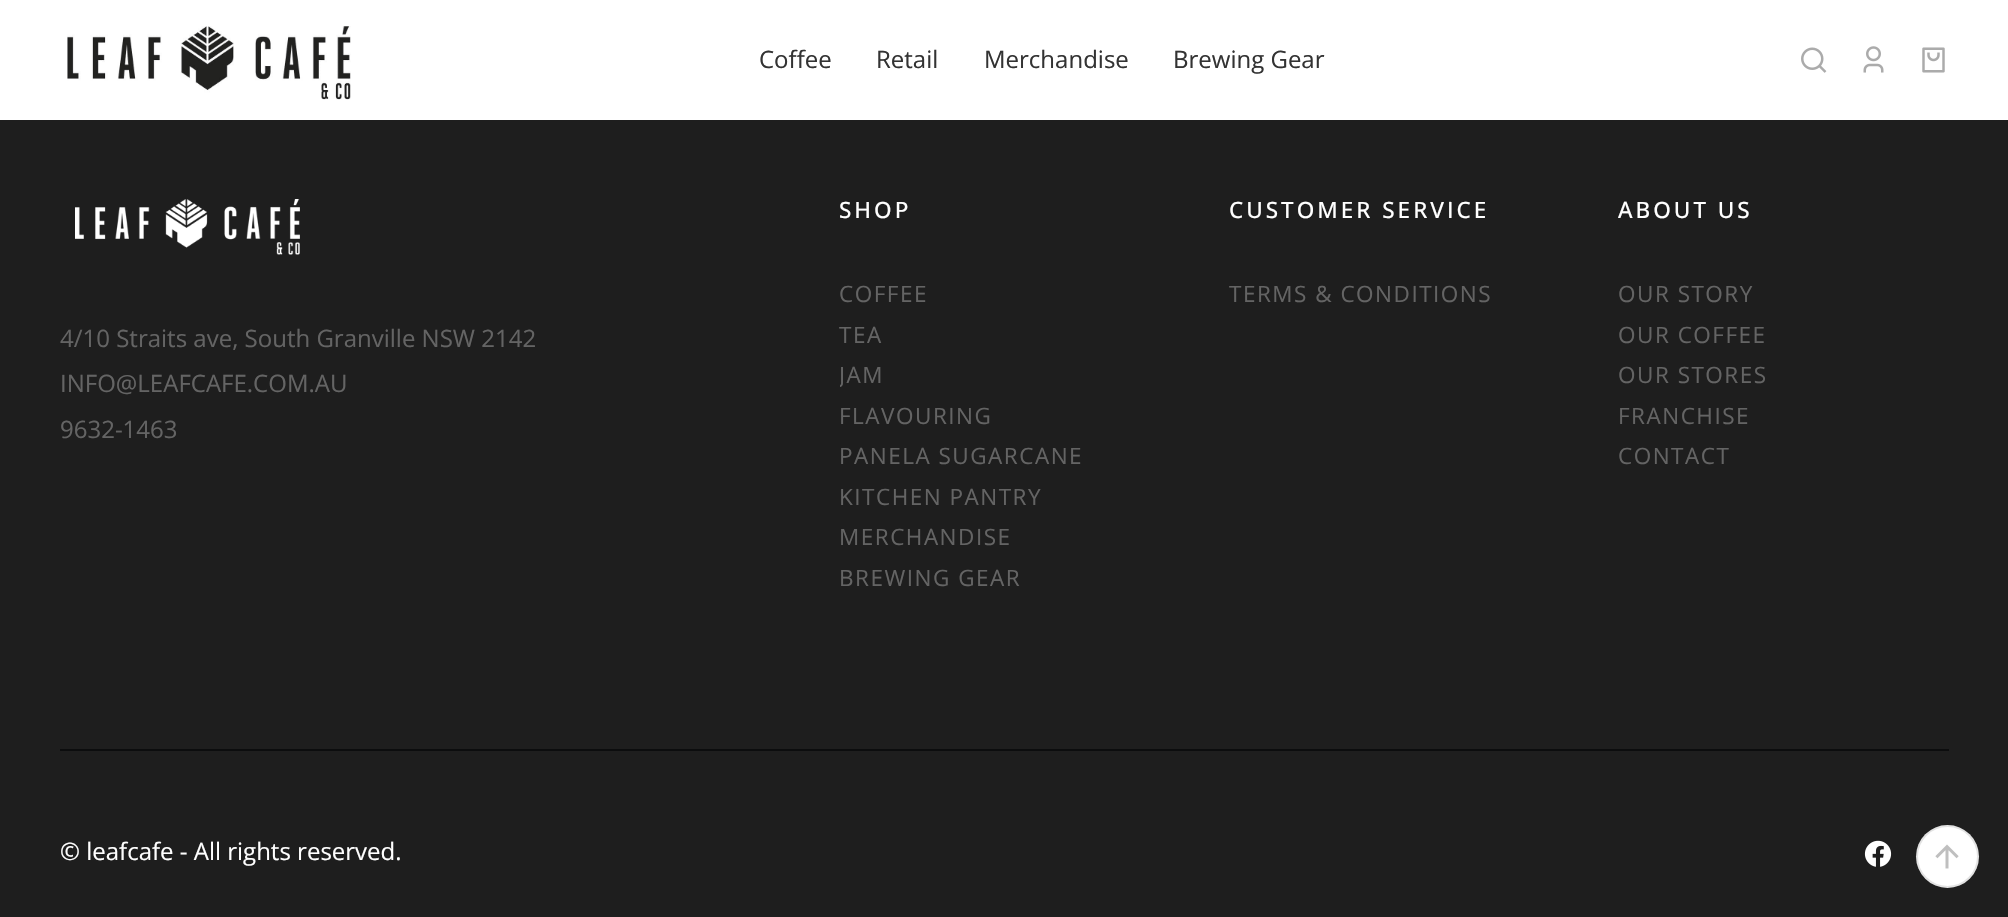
void draw(SkCanvas* c) {
SkPaint p;
p.setAntiAlias(true);
auto F=[&](const char* family, int weight, float size, bool italic = false){SkFontStyle style(weight, SkFontStyle::kNormal_Width,italic ? SkFontStyle::kItalic_Slant : SkFontStyle::kUpright_Slant);SkFont result(fontMgr->matchFamilyStyle(family, style), size);result.setSubpixel(true);return result;};
auto T=[&](const char* s, float x, float y, const SkFont& font){c->drawString(s, x, y, font, p);};
auto L=[&](const char* s, float x, float y, const SkFont& font, const SkPaint& ink, float letter, float word){std::vector<SkGlyphID> glyphs(font.countText(s, strlen(s), SkTextEncoding::kUTF8));std::vector<float> xs(glyphs.size());font.textToGlyphs(s, strlen(s), SkTextEncoding::kUTF8, glyphs);font.getXPos(glyphs, xs, x);float extra = 0;for (size_t i = 0; i < glyphs.size(); i++) {xs[i] += extra;extra += letter + word * (glyphs[i] == font.unicharToGlyph(' '));}c->drawTextBlob(SkTextBlob::MakeFromPosHGlyphs(glyphs, xs, y, font), 0, 0, ink);};
auto R=[&](float x, float y, float w, float h){c->drawRect(SkRect::MakeXYWH(x, y, w, h), p);};
auto I=[&](const char* path, float x, float y, float w, float h){auto image = SkImages::DeferredFromEncodedData(SkData::MakeFromFileName(path));c->drawImageRect(image, SkRect::MakeXYWH(x, y, w, h), SkSamplingOptions());};
c->clear(0xff1e1e1e);
p.setColor(0xffffffff);
R(0,0,2008,120);
I("1.png",67,26,284,74);
auto f1 = F("Open Sans",400,24);
p.setColor(0xff333333);
T("Coffee",759,68,f1);
T("Retail",876,68,f1);
T("Merchandise",984,68,f1);
T("Brewing Gear",1173,68,f1);
I("2.png",1801,47,26,26);
I("3.png",1863,46,21,27);
I("4.png",1922,47,23,26);
I("5.png",75,199,225,56);
p.setColor(0xff646464);
T("4/10 Straits ave, South Granville NSW 2142",60,347,f1);
T("INFO@LEAFCAFE.COM.AU",60,392,f1);
T("9632-1463",60,438,f1);
auto f2 = F("Open Sans",500,22.5);
p.setColor(0xffffffff);
L("SHOP",839,218,f2,p,3,0);
auto f3 = F("Open Sans",400,22.5);
p.setColor(0xff646464);
L("COFFEE",839,302,f3,p,1.5,0);
L("TEA",839,343,f3,p,1.5,0);
c->save();
c->clipRect(SkRect::MakeXYWH(840,275,329,324));
L("JAM",839,383,f3,p,1.5,0);
c->restore();
L("FLAVOURING",839,424,f3,p,1.5,0);
L("PANELA SUGARCANE",839,464,f3,p,1.5,0);
L("KITCHEN PANTRY",839,505,f3,p,1.5,0);
L("MERCHANDISE",839,545,f3,p,1.5,0);
L("BREWING GEAR",839,586,f3,p,1.5,0);
p.setColor(0xffffffff);
L("CUSTOMER SERVICE",1229,218,f2,p,3,0);
p.setColor(0xff646464);
L("TERMS & CONDITIONS",1229,302,f3,p,1.5,0);
p.setColor(0xffffffff);
L("ABOUT US",1618,218,f2,p,3,0);
p.setColor(0xff646464);
L("OUR STORY",1618,302,f3,p,1.5,0);
L("OUR COFFEE",1618,343,f3,p,1.5,0);
L("OUR STORES",1618,383,f3,p,1.5,0);
L("FRANCHISE",1618,424,f3,p,1.5,0);
L("CONTACT",1618,464,f3,p,1.5,0);
p.setColor(0xff0c0d0e);
R(60,749,1889,2);
p.setColor(0xffffffff);
T("© leafcafe - All rights reserved.",60,860,f1);
I("6.png",1864,840,28,27);
c->drawCircle(1947.5,856.5,31.5,p);
p.setStroke(true);
p.setStrokeWidth(2);
p.setColor(0x1c000000);
c->drawCircle(1947.5,856.5,30.5,p);
I("7.png",1935,844,24,25);
}
